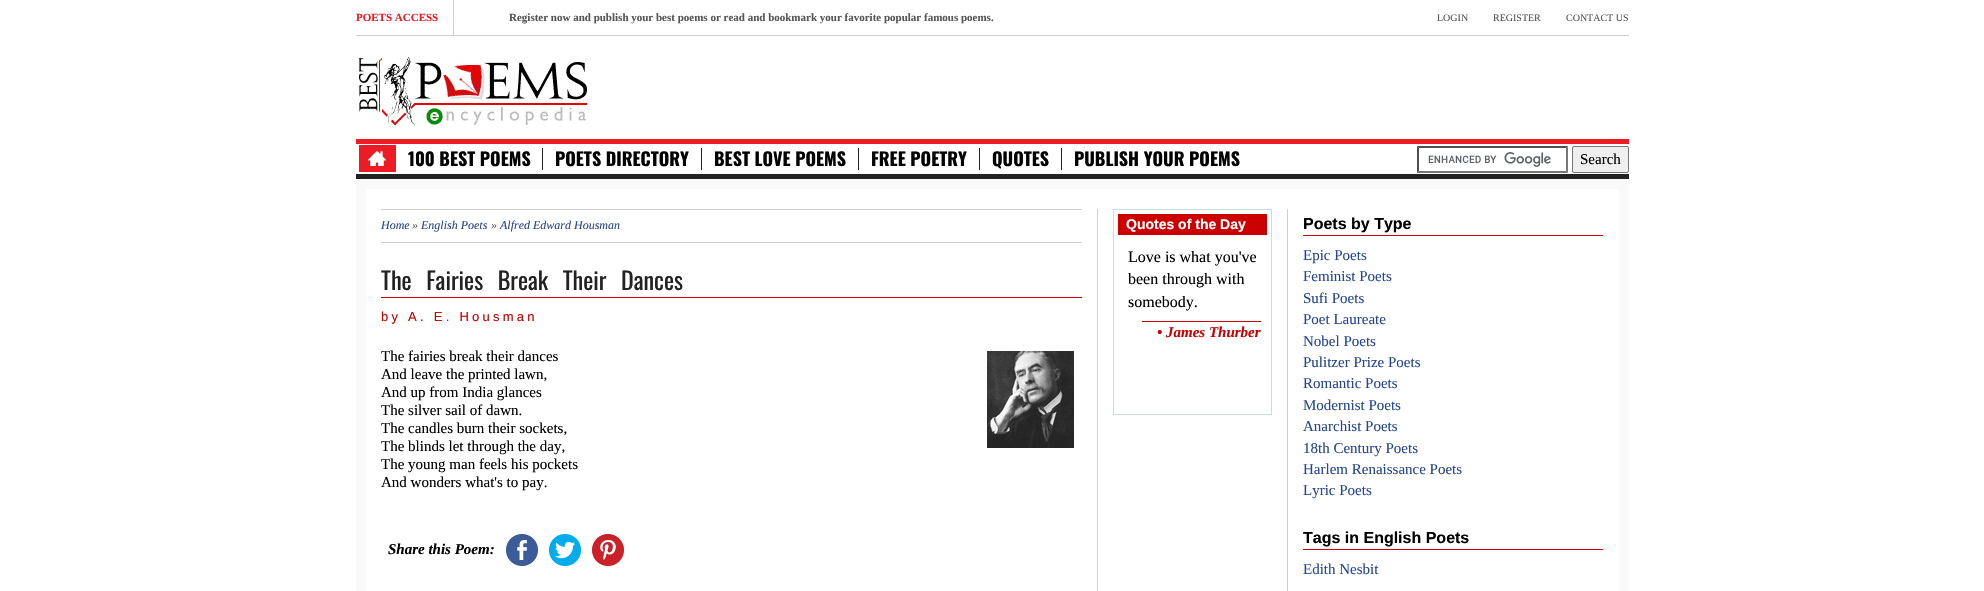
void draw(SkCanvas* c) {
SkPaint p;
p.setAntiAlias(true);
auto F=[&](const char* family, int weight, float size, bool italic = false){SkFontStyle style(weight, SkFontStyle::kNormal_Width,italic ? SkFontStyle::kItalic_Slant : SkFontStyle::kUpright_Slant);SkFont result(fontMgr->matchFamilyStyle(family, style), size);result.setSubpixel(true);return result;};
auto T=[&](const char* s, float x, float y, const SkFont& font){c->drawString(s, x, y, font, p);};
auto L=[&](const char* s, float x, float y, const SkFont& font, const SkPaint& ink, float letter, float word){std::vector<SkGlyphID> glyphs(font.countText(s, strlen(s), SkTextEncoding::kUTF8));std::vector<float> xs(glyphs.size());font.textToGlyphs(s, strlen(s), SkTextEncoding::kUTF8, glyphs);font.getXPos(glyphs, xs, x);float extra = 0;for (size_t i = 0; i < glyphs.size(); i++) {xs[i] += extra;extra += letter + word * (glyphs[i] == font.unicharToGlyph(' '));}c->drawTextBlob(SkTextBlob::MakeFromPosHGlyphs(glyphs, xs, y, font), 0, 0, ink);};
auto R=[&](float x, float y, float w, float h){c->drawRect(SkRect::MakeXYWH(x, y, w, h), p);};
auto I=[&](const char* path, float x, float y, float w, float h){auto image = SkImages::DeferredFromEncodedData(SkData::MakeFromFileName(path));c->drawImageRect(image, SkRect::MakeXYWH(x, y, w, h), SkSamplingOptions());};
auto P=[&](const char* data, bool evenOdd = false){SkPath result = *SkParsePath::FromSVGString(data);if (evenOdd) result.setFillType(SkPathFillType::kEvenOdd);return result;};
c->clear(0xffffffff);
p.setColor(0xffd0d0d0);
R(356,35,1273,1);
R(453,0,1,35);
c->save();
c->clipRect(SkRect::MakeXYWH(356,0,993,35));
auto f1 = F("Liberation Serif",700,11);
p.setColor(0xffed1c24);
T("POETS ACCESS",356,21,f1);
c->restore();
p.setColor(0xff555555);
T("Register now and publish your best poems or read and bookmark your favorite popular famous poems.",509,21,f1);
auto f2 = F("Liberation Serif",400,10);
T("LOGIN",1437,21,f2);
T("REGISTER",1493,21,f2);
T("CONTACT US",1566,21,f2);
I("1.png",359,57,229,69);
p.setColor(0xffed1c24);
R(356,139,1273,5);
p.setColor(0xff222222);
R(356,174,1273,5);
p.setColor(0xffed1c24);
R(359,145,37,27);
I("2.png",368,151,18,15);
auto f3 = F("Oswald",700,18);
p.setColor(0xff000000);
T("100 BEST POEMS",408,166,f3);
p.setColor(0xff222222);
R(542,148,1,22);
p.setColor(0xff000000);
T("POETS DIRECTORY",555,166,f3);
p.setColor(0xff222222);
R(701,148,1,22);
p.setColor(0xff000000);
T("BEST LOVE POEMS",714,166,f3);
p.setColor(0xff222222);
R(858,148,1,22);
p.setColor(0xff000000);
T("FREE POETRY",871,166,f3);
p.setColor(0xff222222);
R(979,148,1,22);
p.setColor(0xff000000);
T("QUOTES",992,166,f3);
p.setColor(0xff222222);
R(1061,148,1,22);
p.setColor(0xff000000);
T("PUBLISH YOUR POEMS",1074,166,f3);
I("3.png",1428,152,123,15);
p.setColor(0xff4f4f4f);
c->drawPath(P("M1417 146h151l-2 2h-147z"),p);
p.setColor(0xff767676);
c->drawPath(P("M1568 146v27l-2-2v-23z"),p);
c->drawPath(P("M1568 173h-151l2-2h147z"),p);
p.setColor(0xff4f4f4f);
c->drawPath(P("M1417 173v-27l2 2v23z"),p);
p.setColor(0xffefefef);
c->drawRoundRect(SkRect::MakeXYWH(1572.5,146.5,56,26),1.5,1.5,p);
p.setStroke(true);
p.setStrokeWidth(1);
p.setColor(0xff767676);
c->drawRoundRect(SkRect::MakeXYWH(1572.5,146.5,56,26),1.5,1.5,p);
auto f4 = F("Liberation Serif",400,15);
p.setStroke(false);
p.setColor(0xff000000);
T("Search",1580,164,f4);
p.setStroke(true);
p.setStrokeWidth(10);
p.setColor(0xfff9f9f9);
c->drawRect(SkRect::MakeXYWH(361,184,1263,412),p);
p.setStroke(false);
p.setColor(0xffd0d0d0);
R(1097,209,1,382);
R(381,209,701,1);
R(381,242,701,1);
auto f5 = F("Liberation Serif",400,12,true);
p.setColor(0xff254694);
T("Home",381,229,f5);
p.setColor(0xff555555);
T("»",412,229,f5);
p.setColor(0xff254694);
T("English Poets",421,229,f5);
p.setColor(0xff555555);
T("»",491,229,f5);
p.setColor(0xff254694);
T("Alfred Edward Housman",500,229,f5);
p.setColor(0xffcc0000);
R(381,297,701,1);
auto f6 = F("Oswald",400,24);
p.setColor(0xff222222);
L("The Fairies Break Their Dances",381,290,f6,p,0,9);
auto f7 = F("Liberation Sans",400,13);
p.setColor(0xffcc0000);
L("by A. E. Housman",381,321,f7,p,3.25,0);
p.setColor(0xff000000);
T("The fairies break their dances",381,361,f4);
T("And leave the printed lawn,",381,379,f4);
T("And up from India glances",381,397,f4);
T("The silver sail of dawn.",381,415,f4);
T("The candles burn their sockets,",381,433,f4);
T("The blinds let through the day,",381,451,f4);
T("The young man feels his pockets",381,469,f4);
T("And wonders what's to pay.",381,487,f4);
I("4.png",987,351,87,97);
auto f8 = F("Liberation Serif",700,15,true);
T("Share this Poem:",388,554,f8);
I("5.png",506,534,32,32);
I("6.png",549,534,32,32);
I("7.png",592,534,32,32);
p.setColor(0xffd0d0d0);
R(1287,209,1,382);
p.setStroke(true);
p.setStrokeWidth(1);
p.setColor(0xffc9dce2);
c->drawRect(SkRect::MakeXYWH(1113.5,209.5,158,205),p);
p.setStroke(false);
p.setColor(0xffcc0000);
R(1118,214,149,21);
auto f9 = F("Liberation Sans",700,14);
p.setColor(0xffffffff);
T("Quotes of the Day",1126,229,f9);
auto f10 = F("Liberation Serif",400,16);
p.setColor(0xff000000);
T("Love is what you've",1128,262,f10);
T("been through with",1128,284,f10);
T("somebody.",1128,307,f10);
p.setColor(0xffcc0000);
R(1142,321,119,1);
T("• James Thurber",1157,337,f8);
R(1303,235,300,1);
auto f11 = F("Liberation Sans",700,16);
p.setColor(0xff000000);
T("Poets by Type",1303,229,f11);
p.setColor(0xff254694);
T("Epic Poets",1303,260,f4);
T("Feminist Poets",1303,281,f4);
T("Sufi Poets",1303,303,f4);
T("Poet Laureate",1303,324,f4);
T("Nobel Poets",1303,346,f4);
T("Pulitzer Prize Poets",1303,367,f4);
T("Romantic Poets",1303,388,f4);
T("Modernist Poets",1303,410,f4);
T("Anarchist Poets",1303,431,f4);
T("18th Century Poets",1303,453,f4);
T("Harlem Renaissance Poets",1303,474,f4);
T("Lyric Poets",1303,495,f4);
p.setColor(0xffcc0000);
R(1303,549,300,1);
p.setColor(0xff000000);
T("Tags in English Poets",1303,543,f11);
p.setColor(0xff254694);
T("Edith Nesbit",1303,574,f4);
}
